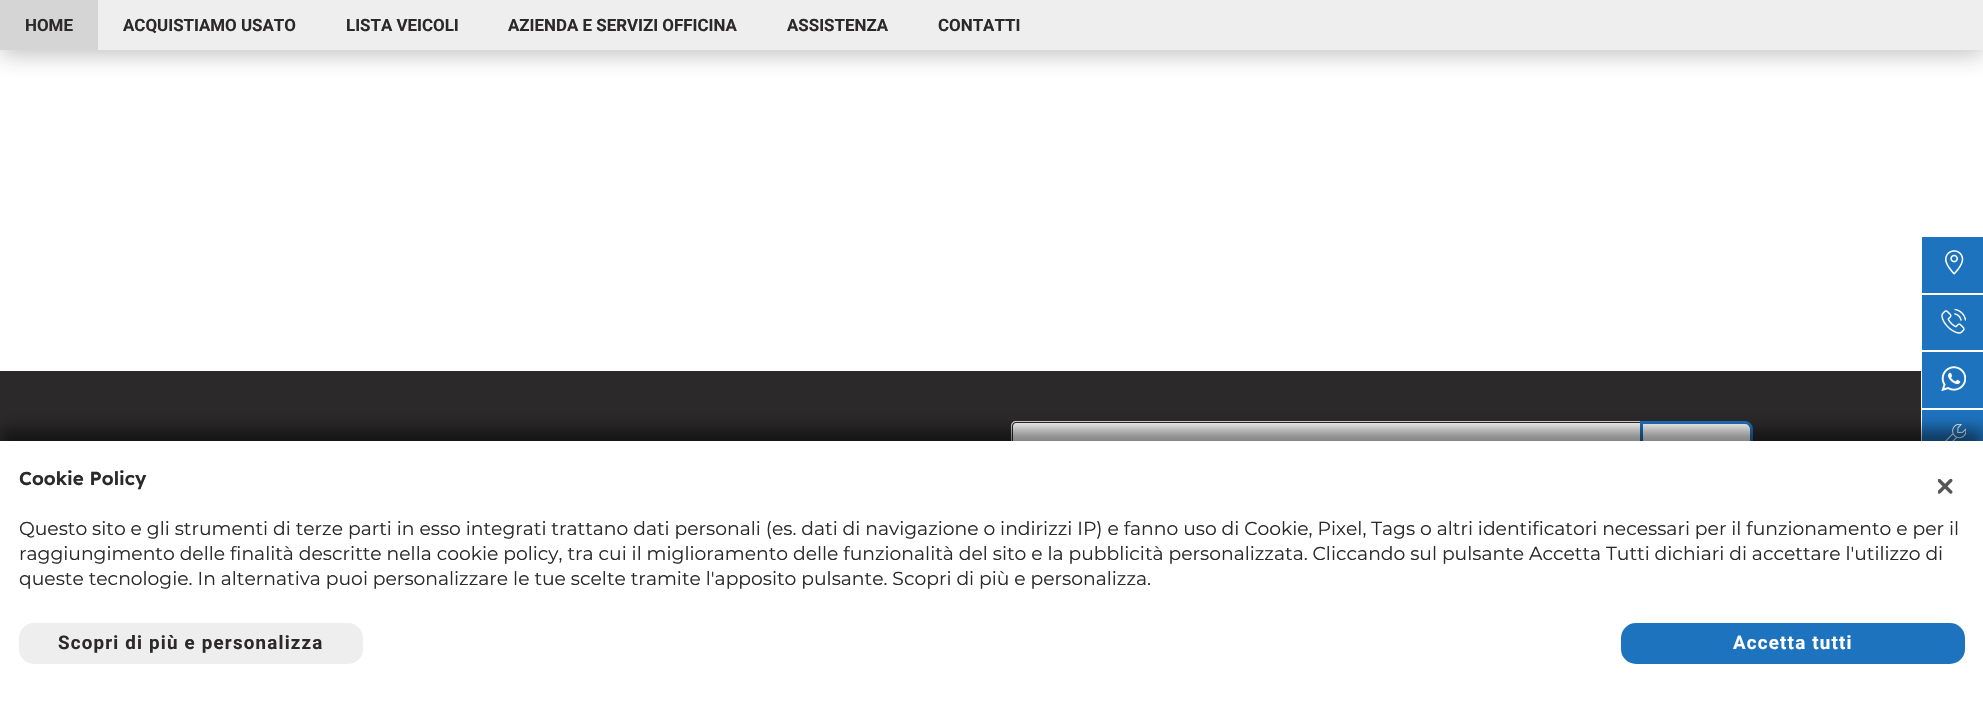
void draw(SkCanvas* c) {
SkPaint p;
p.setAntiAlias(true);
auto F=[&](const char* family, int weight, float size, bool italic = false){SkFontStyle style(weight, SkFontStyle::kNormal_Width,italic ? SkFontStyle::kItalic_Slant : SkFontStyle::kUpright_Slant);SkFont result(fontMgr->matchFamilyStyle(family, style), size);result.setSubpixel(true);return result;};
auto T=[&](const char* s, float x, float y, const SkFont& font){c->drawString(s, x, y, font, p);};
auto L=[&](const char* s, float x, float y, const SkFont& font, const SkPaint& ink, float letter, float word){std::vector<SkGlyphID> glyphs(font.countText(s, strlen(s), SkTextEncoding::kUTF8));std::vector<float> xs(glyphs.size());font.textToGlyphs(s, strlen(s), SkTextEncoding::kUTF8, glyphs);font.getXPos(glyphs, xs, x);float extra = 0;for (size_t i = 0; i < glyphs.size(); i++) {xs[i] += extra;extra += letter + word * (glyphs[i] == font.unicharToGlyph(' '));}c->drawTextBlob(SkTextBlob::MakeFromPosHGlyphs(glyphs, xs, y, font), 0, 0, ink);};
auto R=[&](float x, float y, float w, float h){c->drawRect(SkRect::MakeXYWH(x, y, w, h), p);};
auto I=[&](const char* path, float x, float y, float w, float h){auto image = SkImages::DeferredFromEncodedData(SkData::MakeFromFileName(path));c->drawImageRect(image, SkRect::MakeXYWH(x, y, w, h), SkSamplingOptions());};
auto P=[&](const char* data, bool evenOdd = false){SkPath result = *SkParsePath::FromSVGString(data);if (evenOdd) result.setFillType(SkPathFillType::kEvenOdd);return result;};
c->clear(0xffffffff);
p.setColor(0x4d2b2929);
p.setMaskFilter(SkMaskFilter::MakeBlur(kNormal_SkBlurStyle, 12.5));
c->drawRect(SkRect::MakeXYWH(0,4,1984,50),p);
p.setMaskFilter(nullptr);
p.setColor(0xffeeeeee);
R(98,0,1885,50);
p.setColor(0xffd5d5d5);
R(0,0,98,50);
auto f1 = F("Roboto",700,16.9);
p.setColor(0xff2b2929);
T("HOME",25,31,f1);
T("ACQUISTIAMO USATO",123,31,f1);
T("LISTA VEICOLI",346,31,f1);
T("AZIENDA E SERVIZI OFFICINA",508,31,f1);
T("ASSISTENZA",787,31,f1);
T("CONTATTI",938,31,f1);
R(0,371,1921,70);
p.setColor(0xffffffff);
c->drawPath(P("M1016 423h624v57h-624c-1.5 0-3-1.5-3-3v-51c0-1.5 1.5-3 3-3z"),p);
p.setColor(0xffdcdcdc);
c->drawPath(P("M1016 421h624v60h-624c-3 0-5-2-5-4v-51c0-3 2-5 5-5zm0 1h624v58h-624c-2 0-4-1-4-3v-51c0-2 2-4 4-4z",true),p);
p.setColor(0xffffffff);
c->drawPath(P("M1641.5 422.5h103.5c3.5 0 6.5 3 6.5 6.5v44c0 3.5-3 6.5-6.5 6.5h-103.5z"),p);
p.setStroke(true);
p.setStrokeWidth(3);
p.setColor(0xff1e73be);
c->drawPath(P("M1641.5 422.5h103.5c3.5 0 6.5 3 6.5 6.5v44c0 3.5-3 6.5-6.5 6.5h-103.5z"),p);
p.setStroke(false);
R(1922,237,61,56);
I("1.png",1945,250,19,25);
R(1922,295,61,55);
I("2.png",1941,309,25,25);
R(1922,352,61,56);
I("3.png",1941,366,25,25);
R(1922,410,61,31);
I("4.png",1945,424,21,17);
p.setColor(0x80000000);
p.setMaskFilter(SkMaskFilter::MakeBlur(kNormal_SkBlurStyle, 7.5));
c->drawRect(SkRect::MakeXYWH(0,429,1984,260),p);
p.setMaskFilter(nullptr);
p.setColor(0xffffffff);
R(0,441,1983,260);
auto f2 = F("Lexend",600,18.75);
p.setColor(0xff2b2929);
T("Cookie Policy",19,485,f2);
auto f3 = F("Montserrat",400,18.75);
T("Questo sito e gli strumenti di terze parti in esso integrati trattano dati personali (es. dati di navigazione o indirizzi IP) e fanno uso di Cookie, Pixel, Tags o altri identificatori necessari per il funzionamento e per il",19,535,f3);
T("raggiungimento delle finalità descritte nella cookie policy, tra cui il miglioramento delle funzionalità del sito e la pubblicità personalizzata. Cliccando sul pulsante Accetta Tutti dichiari di accettare l'utilizzo di",19,560,f3);
T("queste tecnologie. In alternativa puoi personalizzare le tue scelte tramite l'apposito pulsante. Scopri di più e personalizza.",19,585,f3);
p.setColor(0xffeeeeee);
c->drawRoundRect(SkRect::MakeXYWH(20.5,624.5,341,38),13.5,13.5,p);
p.setStroke(true);
c->drawRoundRect(SkRect::MakeXYWH(20.5,624.5,341,38),13.5,13.5,p);
auto f4 = F("Roboto",700,18.75);
p.setStroke(false);
p.setColor(0xff2b2929);
L("Scopri di più e personalizza",58,649,f4,p,1.2,0);
p.setColor(0xff1e73be);
c->drawRoundRect(SkRect::MakeXYWH(1622.5,624.5,341,38),13.5,13.5,p);
p.setStroke(true);
c->drawRoundRect(SkRect::MakeXYWH(1622.5,624.5,341,38),13.5,13.5,p);
p.setStroke(false);
p.setColor(0xffffffff);
L("Accetta tutti",1733,649,f4,p,1.2,0);
I("5.png",1938,479,15,15);
}
